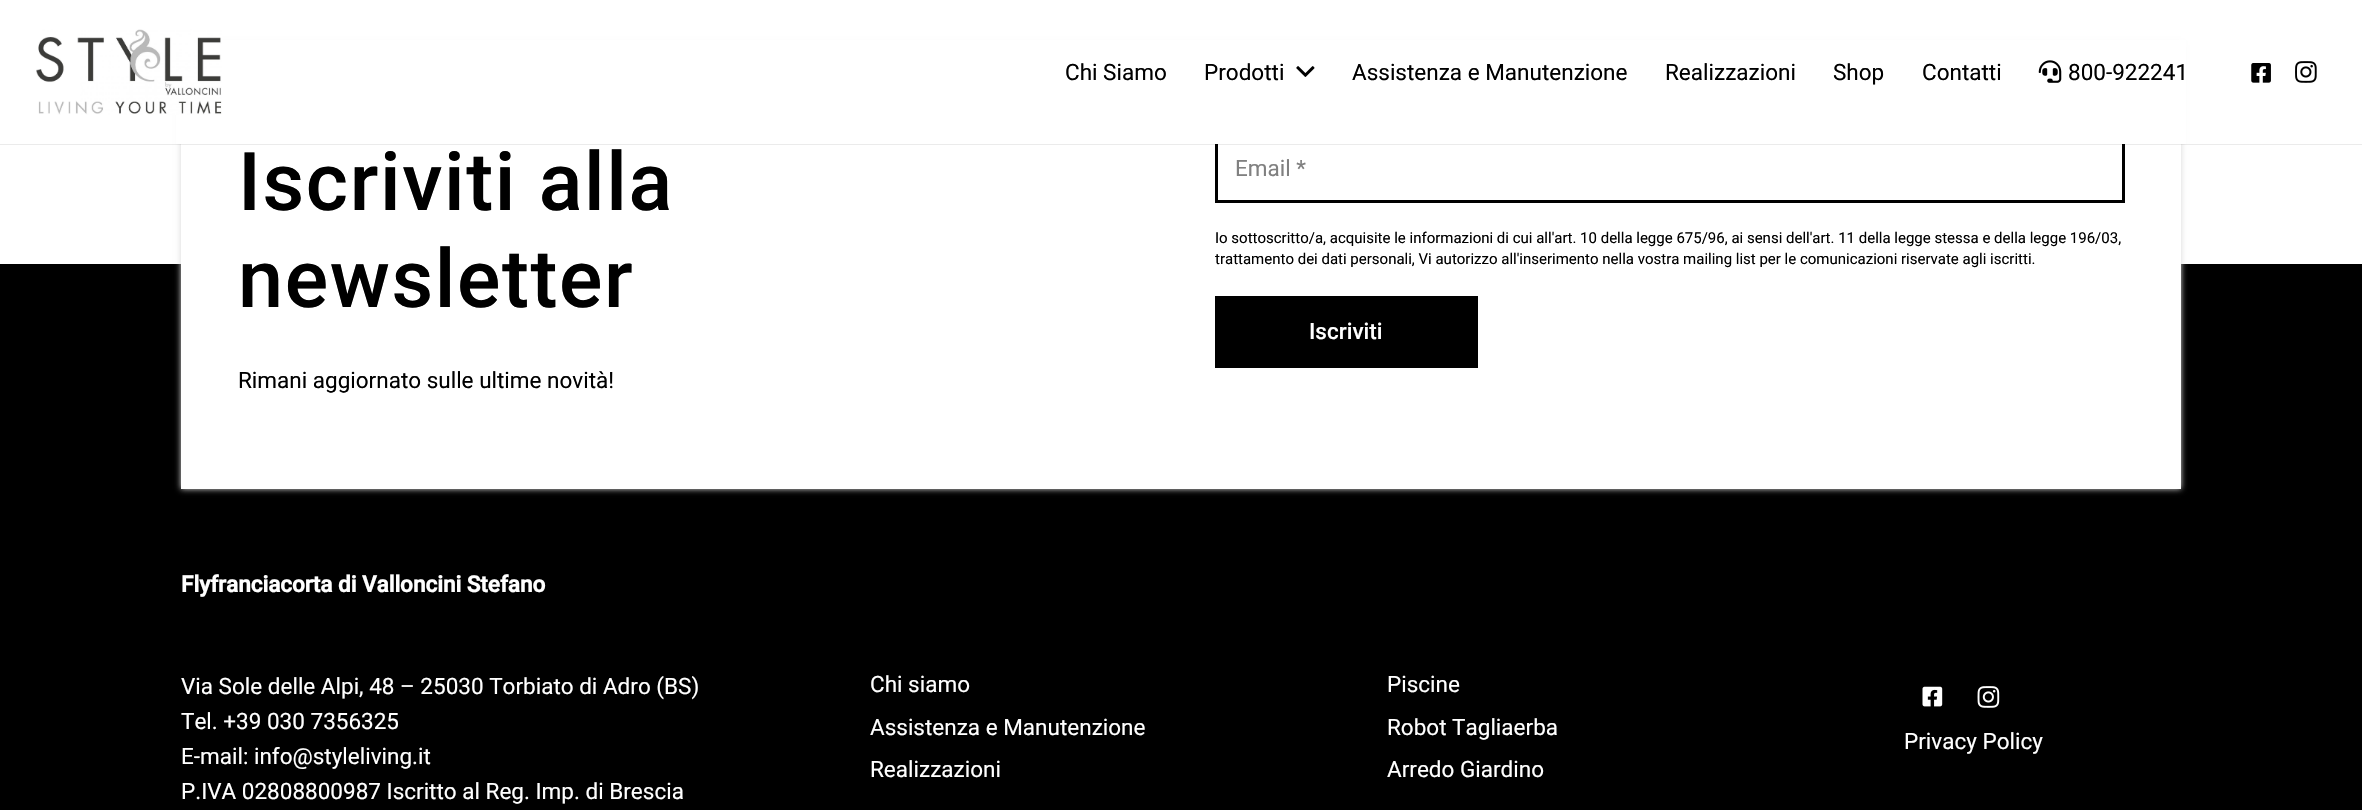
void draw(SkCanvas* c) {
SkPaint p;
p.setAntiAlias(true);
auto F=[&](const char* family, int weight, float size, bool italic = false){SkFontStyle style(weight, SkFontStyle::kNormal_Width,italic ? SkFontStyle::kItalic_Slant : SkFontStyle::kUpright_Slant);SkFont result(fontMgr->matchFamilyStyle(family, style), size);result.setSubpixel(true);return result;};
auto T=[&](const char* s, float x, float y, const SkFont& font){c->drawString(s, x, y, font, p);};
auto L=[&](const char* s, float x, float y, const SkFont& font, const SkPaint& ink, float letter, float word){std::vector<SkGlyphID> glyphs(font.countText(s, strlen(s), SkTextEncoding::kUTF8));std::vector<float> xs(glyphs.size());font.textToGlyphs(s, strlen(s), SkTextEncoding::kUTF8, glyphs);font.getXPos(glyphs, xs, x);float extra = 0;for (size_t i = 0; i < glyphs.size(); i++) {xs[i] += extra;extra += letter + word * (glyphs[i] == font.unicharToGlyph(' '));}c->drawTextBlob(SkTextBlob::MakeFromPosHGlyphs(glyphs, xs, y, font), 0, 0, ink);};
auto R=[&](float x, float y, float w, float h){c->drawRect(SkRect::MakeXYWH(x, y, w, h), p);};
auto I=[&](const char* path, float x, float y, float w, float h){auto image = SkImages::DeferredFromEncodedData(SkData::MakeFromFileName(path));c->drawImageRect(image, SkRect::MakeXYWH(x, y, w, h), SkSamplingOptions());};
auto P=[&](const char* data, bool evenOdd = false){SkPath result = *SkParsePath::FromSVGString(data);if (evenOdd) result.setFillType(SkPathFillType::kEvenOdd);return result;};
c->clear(0xffffffff);
p.setColor(0xff000000);
R(0,264,2362,546);
p.setColor(0xffd8d8d8);
p.setMaskFilter(SkMaskFilter::MakeBlur(kNormal_SkBlurStyle, 3));
c->drawRect(SkRect::MakeXYWH(181,45,2000,444),p);
p.setMaskFilter(nullptr);
p.setColor(0xffffffff);
R(181,144,2000,345);
p.setStroke(true);
p.setStrokeWidth(3);
p.setColor(0xff000000);
c->drawRect(SkRect::MakeXYWH(1216.5,136.5,907,65),p);
p.setStroke(false);
p.setColor(0x14000000);
c->drawPath(P("M0 144v1h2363v-144h-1v143z"),p);
p.setColor(0xffffffff);
R(176,40,2010,104);
I("1.png",36,29,186,86);
auto f1 = F("Roboto",400,22.5);
p.setColor(0xff000000);
T("Chi Siamo",1065,80,f1);
T("Prodotti",1204,80,f1);
I("2.png",1296,66,19,11);
T("Assistenza e Manutenzione",1352,80,f1);
T("Realizzazioni",1665,80,f1);
T("Shop",1833,80,f1);
T("Contatti",1922,80,f1);
I("3.png",2038,60,24,23);
T("800-922241",2068,80,f1);
I("4.png",2251,63,20,20);
I("5.png",2295,61,22,22);
auto f2 = F("Roboto",500,81);
L("Iscriviti alla",238,210,f2,p,1.6,0);
L("newsletter",238,307,f2,p,1.6,0);
T("Rimani aggiornato sulle ultime novità!",238,388,f1);
p.setColor(0xff808080);
T("Email *",1235,176,f1);
auto f3 = F("Roboto",400,15);
p.setColor(0xff000000);
T("Io sottoscritto/a, acquisite le informazioni di cui all'art. 10 della legge 675/96, ai sensi dell'art. 11 della legge stessa e della legge 196/03,",1215,243,f3);
T("trattamento dei dati personali, Vi autorizzo all'inserimento nella vostra mailing list per le comunicazioni riservate agli iscritti.",1215,264,f3);
R(1215,296,263,72);
auto f4 = F("Roboto",500,22.5);
p.setColor(0xffffffff);
T("Iscriviti",1309,339,f4);
auto f5 = F("Roboto",700,22.5);
T("Flyfranciacorta di Valloncini Stefano",181,592,f5);
T("Via Sole delle Alpi, 48 – 25030 Torbiato di Adro (BS)",181,694,f1);
T("Tel. +39 030 7356325",181,729,f1);
T("E-mail: info@styleliving.it",181,764,f1);
T("P.IVA 02808800987 Iscritto al Reg. Imp. di Brescia",181,799,f1);
T("Chi siamo",870,692,f1);
T("Assistenza e Manutenzione",870,735,f1);
T("Realizzazioni",870,777,f1);
T("Piscine",1387,692,f1);
T("Robot Tagliaerba",1387,735,f1);
T("Arredo Giardino",1387,777,f1);
I("6.png",1922,686,21,21);
I("7.png",1977,686,23,22);
T("Privacy Policy",1904,749,f1);
}
